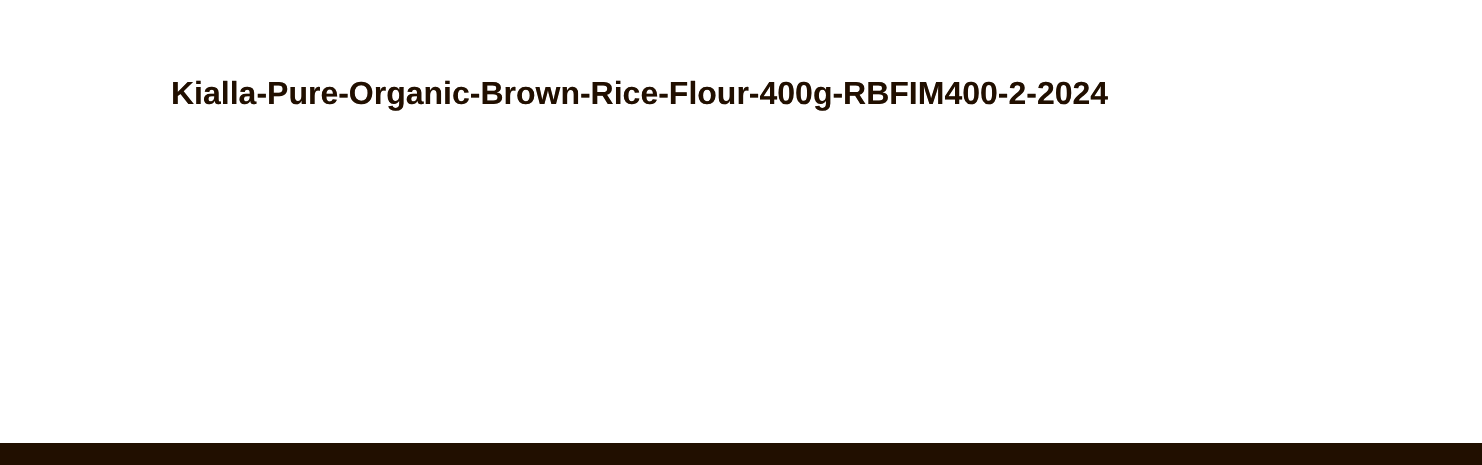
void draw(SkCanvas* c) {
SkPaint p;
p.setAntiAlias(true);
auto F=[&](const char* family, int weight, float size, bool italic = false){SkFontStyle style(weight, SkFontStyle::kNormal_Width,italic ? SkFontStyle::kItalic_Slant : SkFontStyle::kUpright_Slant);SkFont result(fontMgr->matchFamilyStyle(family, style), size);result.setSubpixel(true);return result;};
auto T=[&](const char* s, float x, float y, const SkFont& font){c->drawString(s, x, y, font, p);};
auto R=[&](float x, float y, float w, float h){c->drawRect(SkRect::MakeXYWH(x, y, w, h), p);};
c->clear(0xffffffff);
auto f1 = F("Liberation Sans",700,32);
p.setColor(0xff210f00);
T("Kialla-Pure-Organic-Brown-Rice-Flour-400g-RBFIM400-2-2024",171,104,f1);
R(0,443,1482,22);
}
